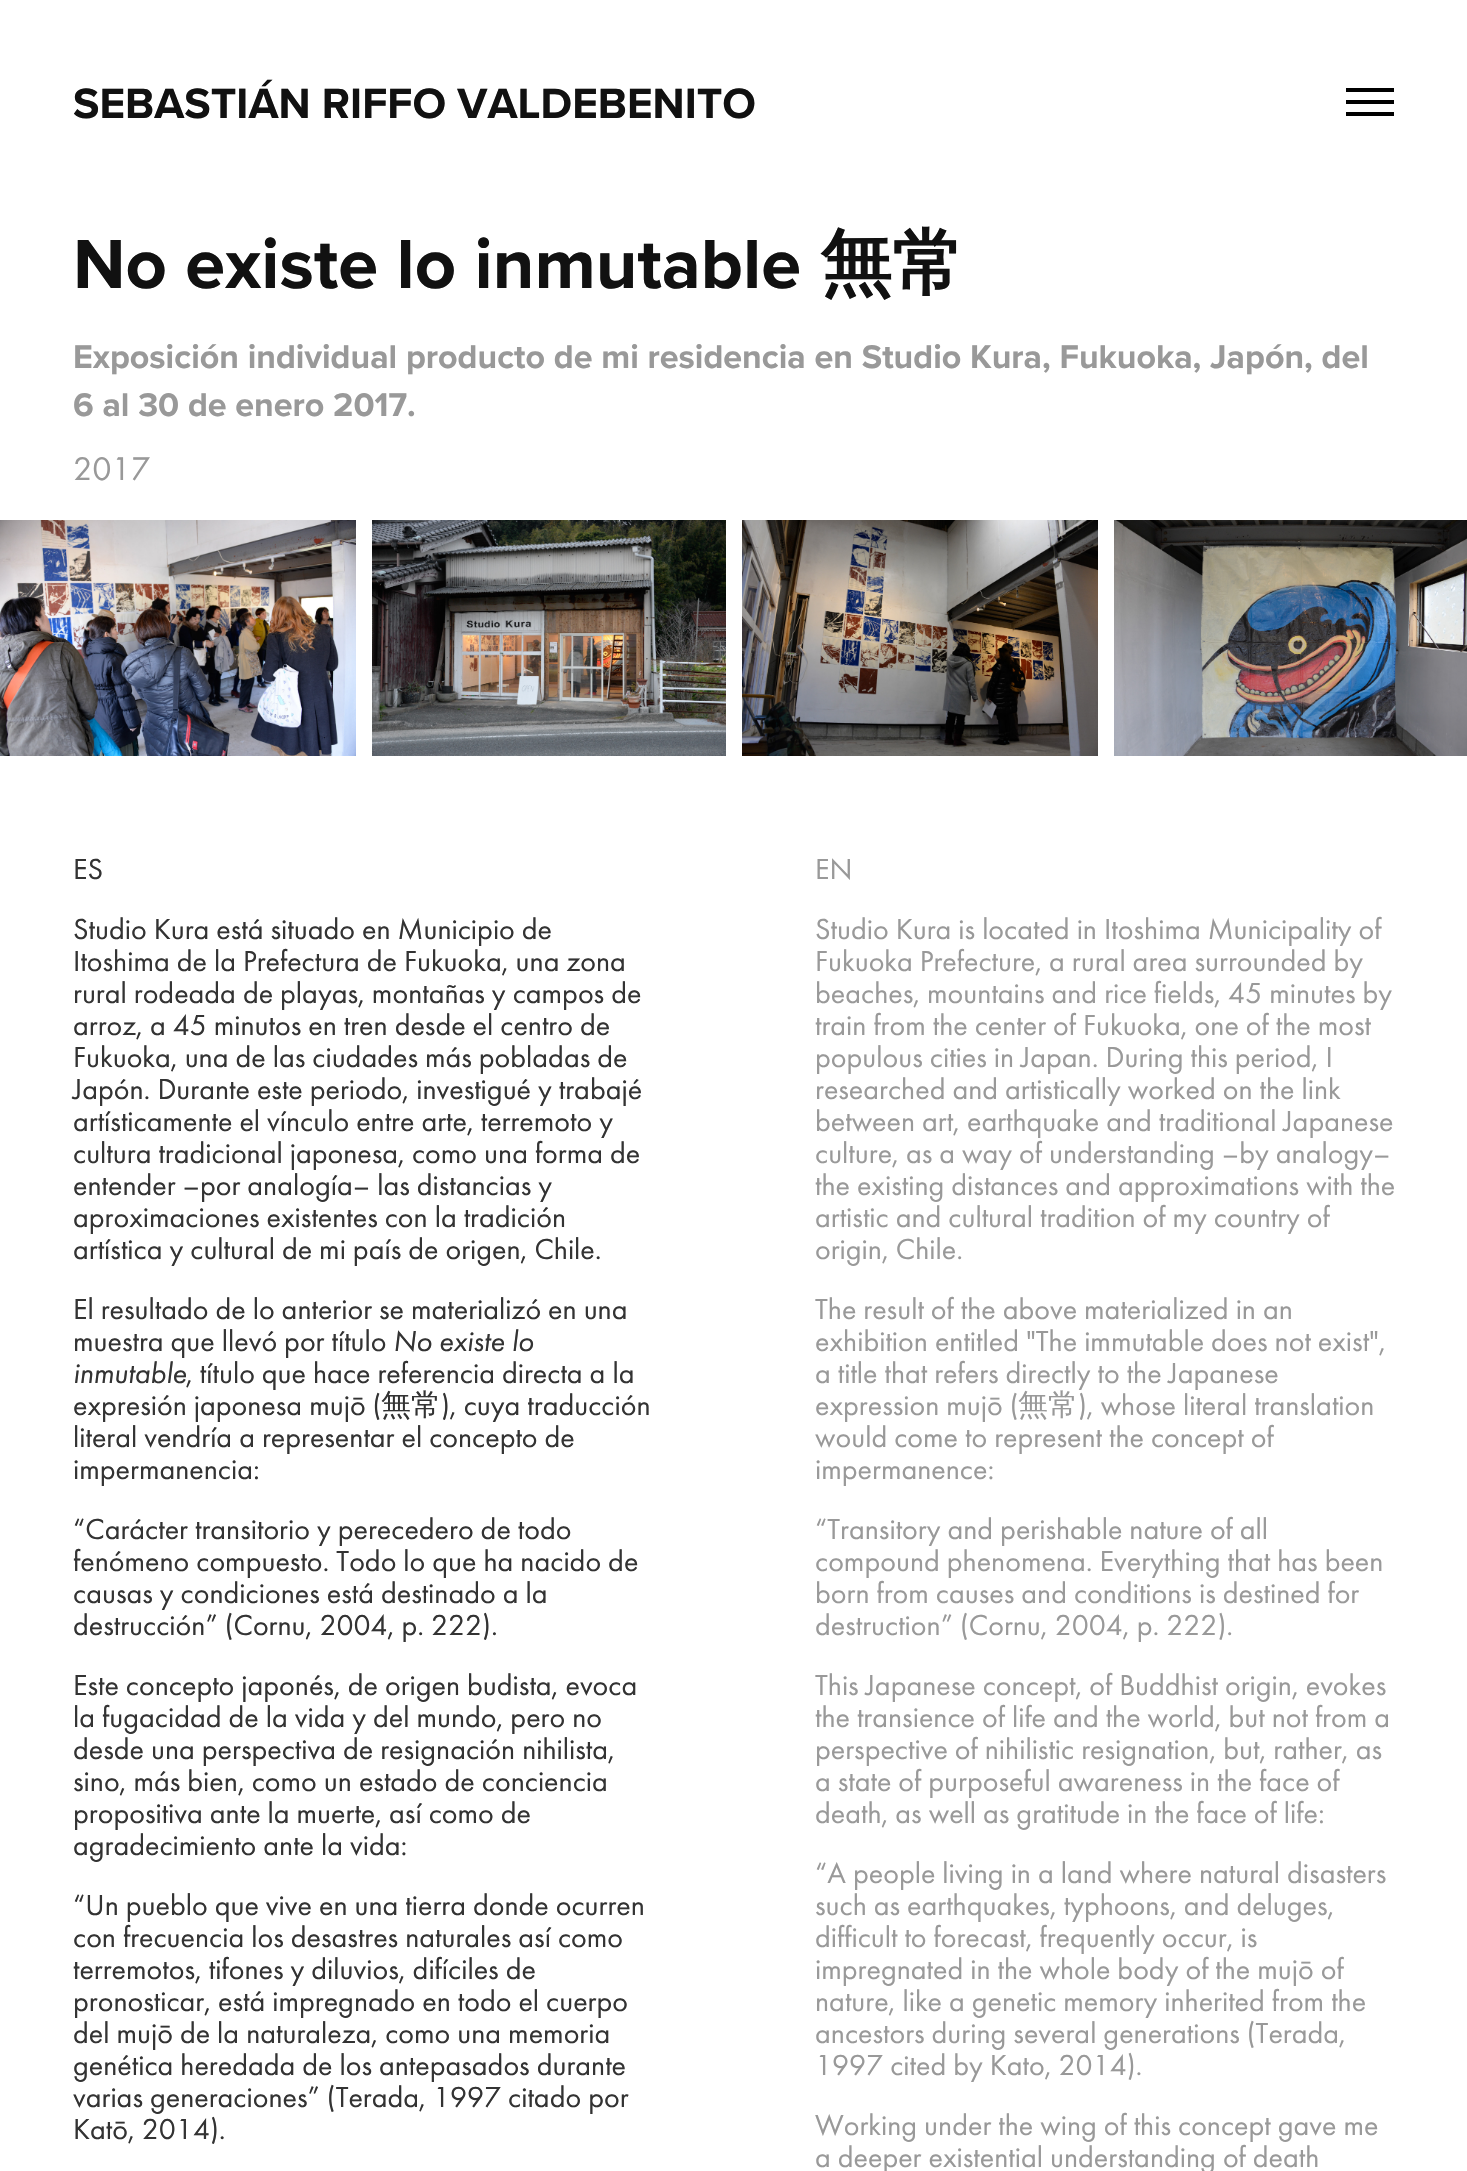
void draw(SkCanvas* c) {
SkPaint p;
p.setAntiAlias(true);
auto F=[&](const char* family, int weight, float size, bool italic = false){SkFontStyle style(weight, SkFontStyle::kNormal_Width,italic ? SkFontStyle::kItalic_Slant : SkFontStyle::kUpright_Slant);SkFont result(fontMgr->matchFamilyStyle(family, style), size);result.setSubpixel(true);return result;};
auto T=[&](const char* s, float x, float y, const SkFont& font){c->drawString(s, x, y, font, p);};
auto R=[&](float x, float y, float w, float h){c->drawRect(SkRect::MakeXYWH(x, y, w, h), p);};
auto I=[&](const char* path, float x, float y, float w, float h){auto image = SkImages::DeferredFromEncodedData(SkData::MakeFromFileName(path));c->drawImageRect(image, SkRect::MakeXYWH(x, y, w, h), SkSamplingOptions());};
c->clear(0xffffffff);
auto f1 = F("Proxima Nova",700,44);
p.setColor(0xff111111);
T("SEBASTIÁN RIFFO VALDEBENITO",73,118,f1);
p.setColor(0xff000000);
R(1346,88,48,4);
R(1346,100,48,4);
R(1346,112,48,4);
auto f2 = F("Proxima Nova",700,72);
p.setColor(0xff111111);
T("No existe lo inmutable",73,288,f2);
auto f3 = F("WenQuanYi Zen Hei",700,72);
T("無常",820,288,f3);
auto f4 = F("Proxima Nova",700,34);
p.setColor(0xff999999);
T("Exposición individual producto de mi residencia en Studio Kura, Fukuoka, Japón, del",73,368,f4);
T("6 al 30 de enero 2017.",73,416,f4);
auto f5 = F("Futura PT",400,34);
T("2017",73,480,f5);
I("1.png",0,520,356,236);
I("2.png",372,520,354,236);
I("3.png",742,520,356,236);
I("4.png",1114,520,353,236);
auto f6 = F("Futura PT",400,30);
p.setColor(0xff333333);
T("ES",73,879,f6);
T("Studio Kura está situado en Municipio de",73,939,f6);
T("Itoshima de la Prefectura de Fukuoka, una zona",73,971,f6);
T("rural rodeada de playas, montañas y campos de",73,1003,f6);
T("arroz, a 45 minutos en tren desde el centro de",73,1035,f6);
T("Fukuoka, una de las ciudades más pobladas de",73,1067,f6);
T("Japón. Durante este periodo, investigué y trabajé",73,1099,f6);
T("artísticamente el vínculo entre arte, terremoto y",73,1131,f6);
T("cultura tradicional japonesa, como una forma de",73,1163,f6);
T("entender –por analogía– las distancias y",73,1195,f6);
T("aproximaciones existentes con la tradición",73,1227,f6);
T("artística y cultural de mi país de origen, Chile.",73,1259,f6);
T("El resultado de lo anterior se materializó en una",73,1319,f6);
T("muestra que llevó por título",73,1351,f6);
auto f7 = F("Futura PT",400,30,true);
T("No existe lo",393,1351,f7);
T("inmutable",73,1383,f7);
T(", título que hace referencia directa a la",186,1383,f6);
T("expresión japonesa mujō (",73,1415,f6);
auto f8 = F("WenQuanYi Zen Hei",500,30);
T("無常",381,1415,f8);
T("), cuya traducción",441,1415,f6);
T("literal vendría a representar el concepto de",73,1447,f6);
T("impermanencia:",73,1479,f6);
T("“Carácter transitorio y perecedero de todo",73,1539,f6);
T("fenómeno compuesto. Todo lo que ha nacido de",73,1571,f6);
T("causas y condiciones está destinado a la",73,1603,f6);
T("destrucción” (Cornu, 2004, p. 222).",73,1635,f6);
T("Este concepto japonés, de origen budista, evoca",73,1695,f6);
T("la fugacidad de la vida y del mundo, pero no",73,1727,f6);
T("desde una perspectiva de resignación nihilista,",73,1759,f6);
T("sino, más bien, como un estado de conciencia",73,1791,f6);
T("propositiva ante la muerte, así como de",73,1823,f6);
T("agradecimiento ante la vida:",73,1855,f6);
T("“Un pueblo que vive en una tierra donde ocurren",73,1915,f6);
T("con frecuencia los desastres naturales así como",73,1947,f6);
T("terremotos, tifones y diluvios, difíciles de",73,1979,f6);
T("pronosticar, está impregnado en todo el cuerpo",73,2011,f6);
T("del mujō de la naturaleza, como una memoria",73,2043,f6);
T("genética heredada de los antepasados durante",73,2075,f6);
T("varias generaciones” (Terada, 1997 citado por",73,2107,f6);
T("Katō, 2014).",73,2139,f6);
p.setColor(0xff999999);
T("EN",815,879,f6);
T("Studio Kura is located in Itoshima Municipality of",815,939,f6);
T("Fukuoka Prefecture, a rural area surrounded by",815,971,f6);
T("beaches, mountains and rice fields, 45 minutes by",815,1003,f6);
T("train from the center of Fukuoka, one of the most",815,1035,f6);
T("populous cities in Japan. During this period, I",815,1067,f6);
T("researched and artistically worked on the link",815,1099,f6);
T("between art, earthquake and traditional Japanese",815,1131,f6);
T("culture, as a way of understanding –by analogy–",815,1163,f6);
T("the existing distances and approximations with the",815,1195,f6);
T("artistic and cultural tradition of my country of",815,1227,f6);
T("origin, Chile.",815,1259,f6);
T("The result of the above materialized in an",815,1319,f6);
T("exhibition entitled \"The immutable does not exist\",",815,1351,f6);
T("a title that refers directly to the Japanese",815,1383,f6);
T("expression mujō (",815,1415,f6);
T("無常",1018,1415,f8);
T("), whose literal translation",1078,1415,f6);
T("would come to represent the concept of",815,1447,f6);
T("impermanence:",815,1479,f6);
T("“Transitory and perishable nature of all",815,1539,f6);
T("compound phenomena. Everything that has been",815,1571,f6);
T("born from causes and conditions is destined for",815,1603,f6);
T("destruction” (Cornu, 2004, p. 222).",815,1635,f6);
T("This Japanese concept, of Buddhist origin, evokes",815,1695,f6);
T("the transience of life and the world, but not from a",815,1727,f6);
T("perspective of nihilistic resignation, but, rather, as",815,1759,f6);
T("a state of purposeful awareness in the face of",815,1791,f6);
T("death, as well as gratitude in the face of life:",815,1823,f6);
T("“A people living in a land where natural disasters",815,1883,f6);
T("such as earthquakes, typhoons, and deluges,",815,1915,f6);
T("difficult to forecast, frequently occur, is",815,1947,f6);
T("impregnated in the whole body of the mujō of",815,1979,f6);
T("nature, like a genetic memory inherited from the",815,2011,f6);
T("ancestors during several generations (Terada,",815,2043,f6);
T("1997 cited by Kato, 2014).",815,2075,f6);
T("Working under the wing of this concept gave me",815,2135,f6);
T("a deeper existential understanding of death",815,2167,f6);
}
